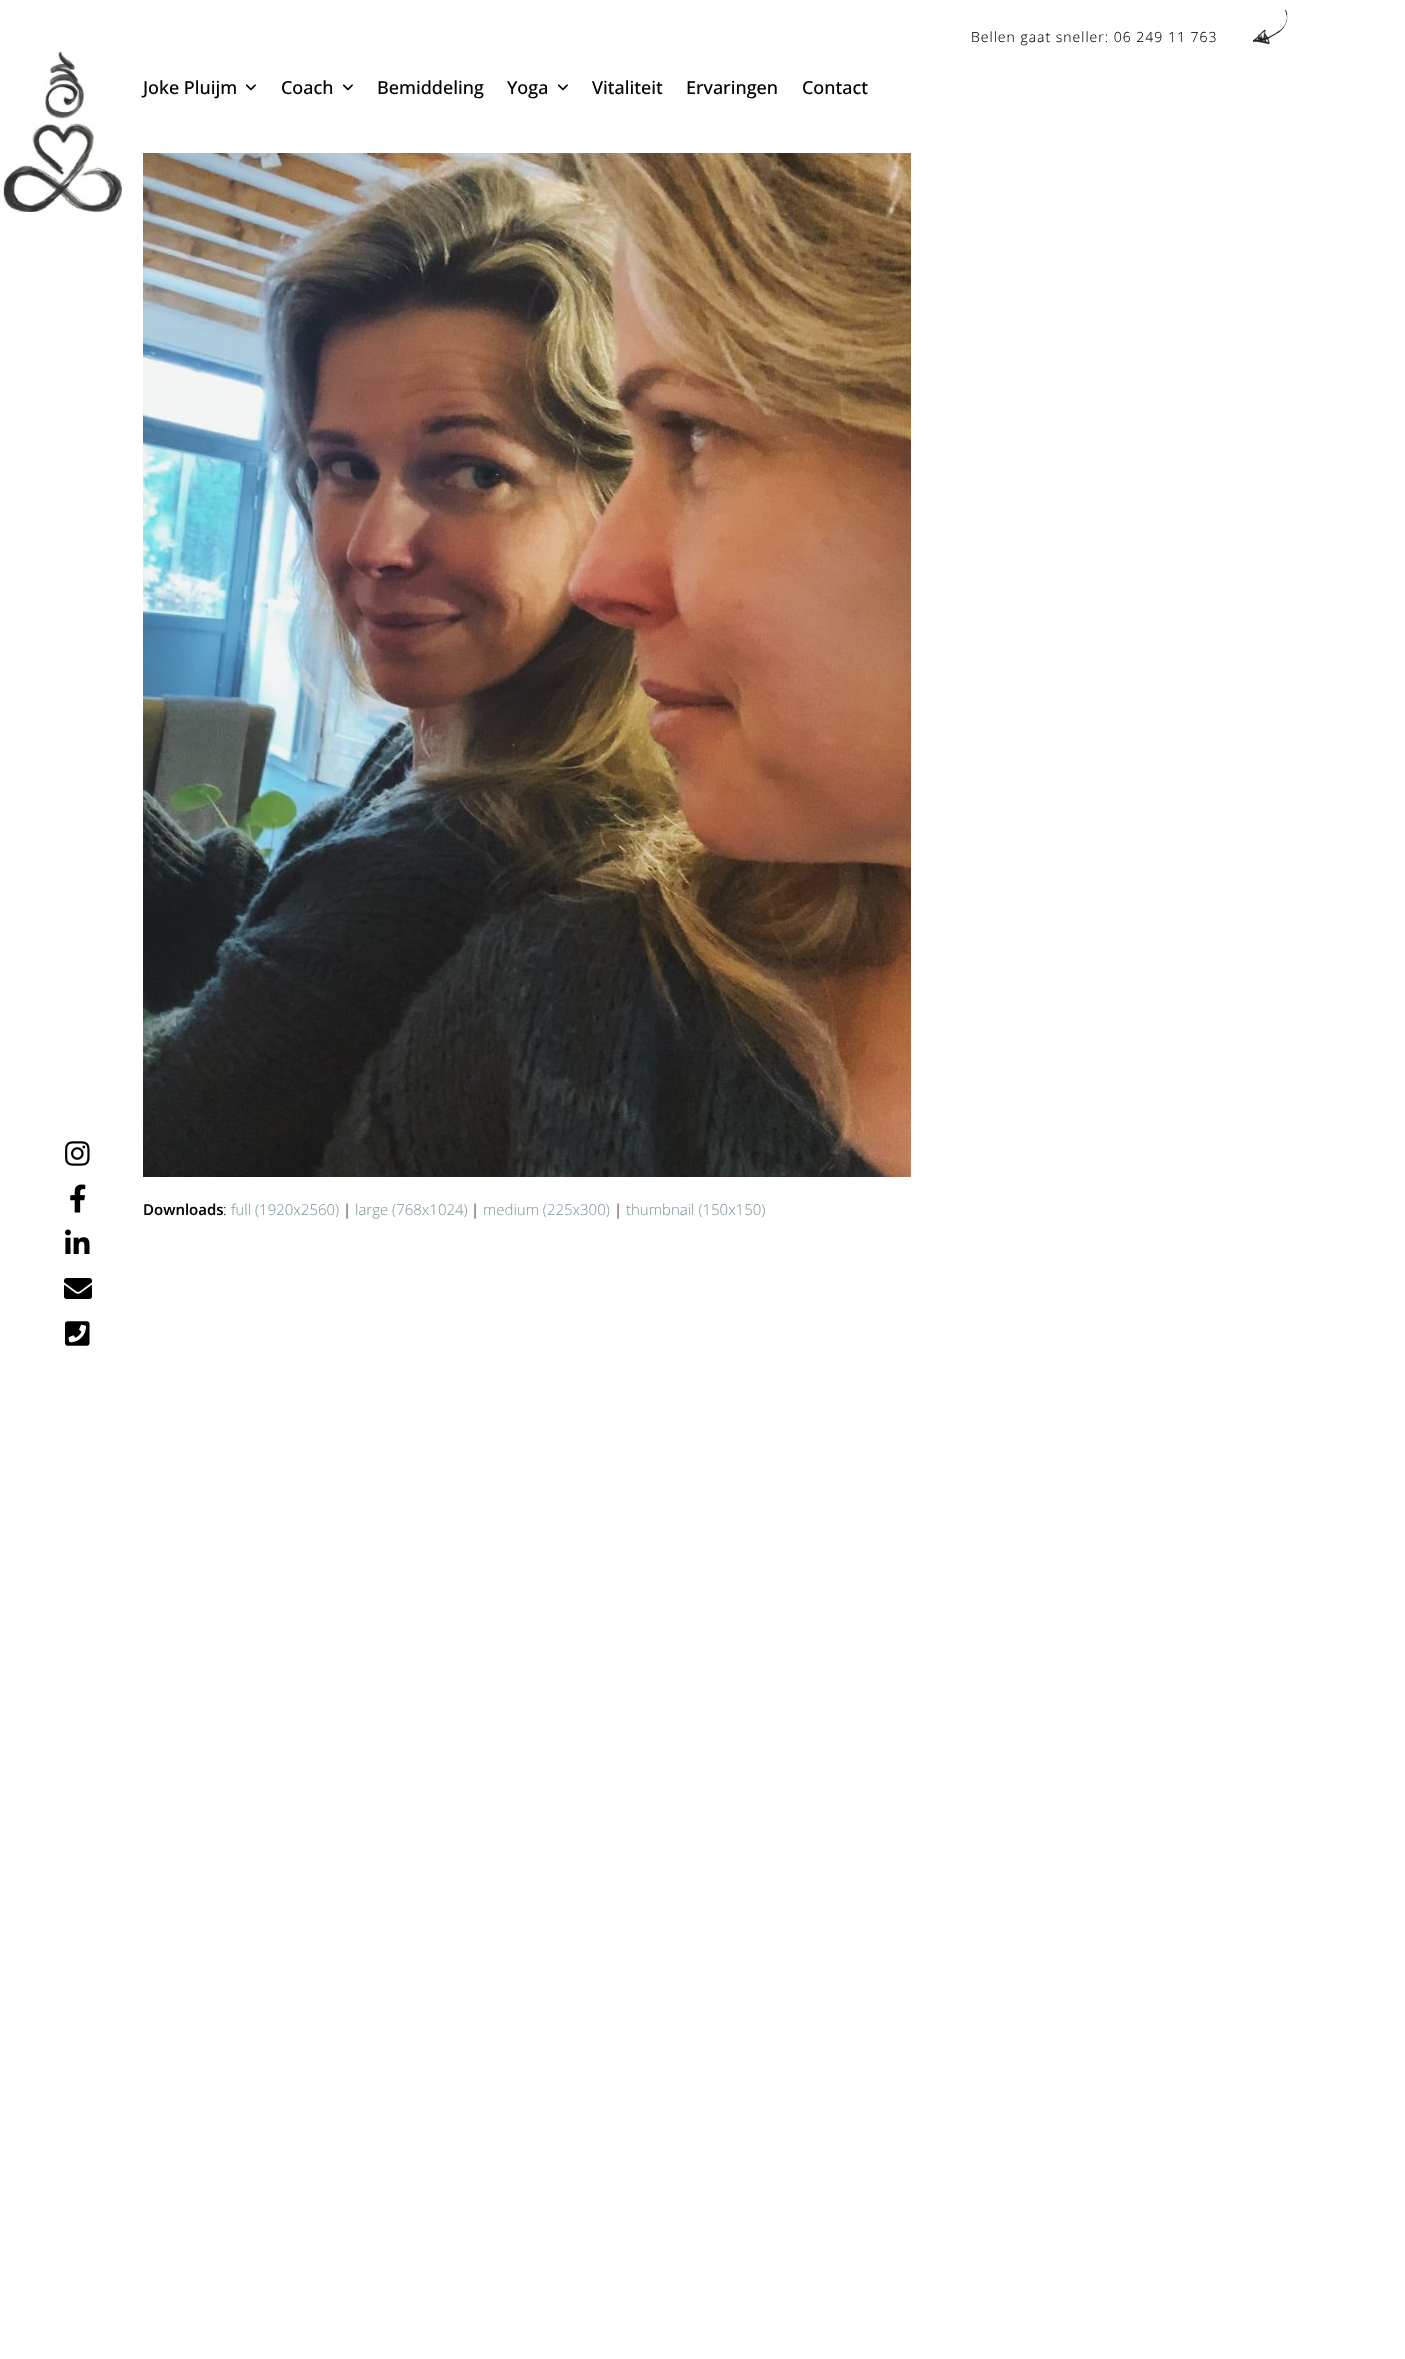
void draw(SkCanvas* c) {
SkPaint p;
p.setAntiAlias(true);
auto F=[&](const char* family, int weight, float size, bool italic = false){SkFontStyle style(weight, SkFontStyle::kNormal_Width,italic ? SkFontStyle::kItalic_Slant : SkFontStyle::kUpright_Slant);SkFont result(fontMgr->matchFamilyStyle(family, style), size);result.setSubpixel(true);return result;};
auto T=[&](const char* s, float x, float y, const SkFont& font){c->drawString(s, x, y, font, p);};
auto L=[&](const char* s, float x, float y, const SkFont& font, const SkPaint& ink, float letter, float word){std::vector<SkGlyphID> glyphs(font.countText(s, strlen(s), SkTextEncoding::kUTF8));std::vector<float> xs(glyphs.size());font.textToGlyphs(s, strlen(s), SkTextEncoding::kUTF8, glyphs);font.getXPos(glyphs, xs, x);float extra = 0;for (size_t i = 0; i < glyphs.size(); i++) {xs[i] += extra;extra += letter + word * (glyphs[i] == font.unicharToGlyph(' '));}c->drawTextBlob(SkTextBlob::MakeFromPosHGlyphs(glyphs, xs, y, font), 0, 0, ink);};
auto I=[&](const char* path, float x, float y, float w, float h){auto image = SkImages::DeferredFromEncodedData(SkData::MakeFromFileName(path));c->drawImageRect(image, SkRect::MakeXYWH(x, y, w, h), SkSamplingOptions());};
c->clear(0xffffffff);
I("1.png",3,50,119,162);
I("2.png",1252,10,36,35);
auto f1 = F("Open Sans",300,14);
p.setColor(0xff050505);
L("Bellen gaat sneller: 06 249 11 763",971,42,f1,p,1,0);
auto f2 = F("Open Sans",500,18);
T("Joke Pluijm",143,94,f2);
I("3.png",245,84,11,7);
T("Coach",281,94,f2);
I("3.png",342,84,11,7);
T("Bemiddeling",377,94,f2);
T("Yoga",507,94,f2);
I("3.png",557,84,11,7);
T("Vitaliteit",592,94,f2);
T("Ervaringen",686,94,f2);
T("Contact",802,94,f2);
I("4.png",143,153,768,1024);
auto f3 = F("Open Sans",600,15);
T("Downloads",143,1215,f3);
auto f4 = F("Open Sans",300,15);
T(":",223,1215,f4);
p.setColor(0xff809b9d);
T("full (1920x2560)",231,1215,f4);
p.setColor(0xff050505);
T("|",343,1215,f4);
p.setColor(0xff809b9d);
T("large (768x1024)",355,1215,f4);
p.setColor(0xff050505);
T("|",471,1215,f4);
p.setColor(0xff809b9d);
T("medium (225x300)",483,1215,f4);
p.setColor(0xff050505);
T("|",614,1215,f4);
p.setColor(0xff809b9d);
T("thumbnail (150x150)",626,1215,f4);
I("5.png",65,1141,25,25);
I("6.png",70,1184,16,29);
I("7.png",65,1229,25,25);
I("8.png",64,1278,28,21);
I("9.png",65,1321,25,25);
}
